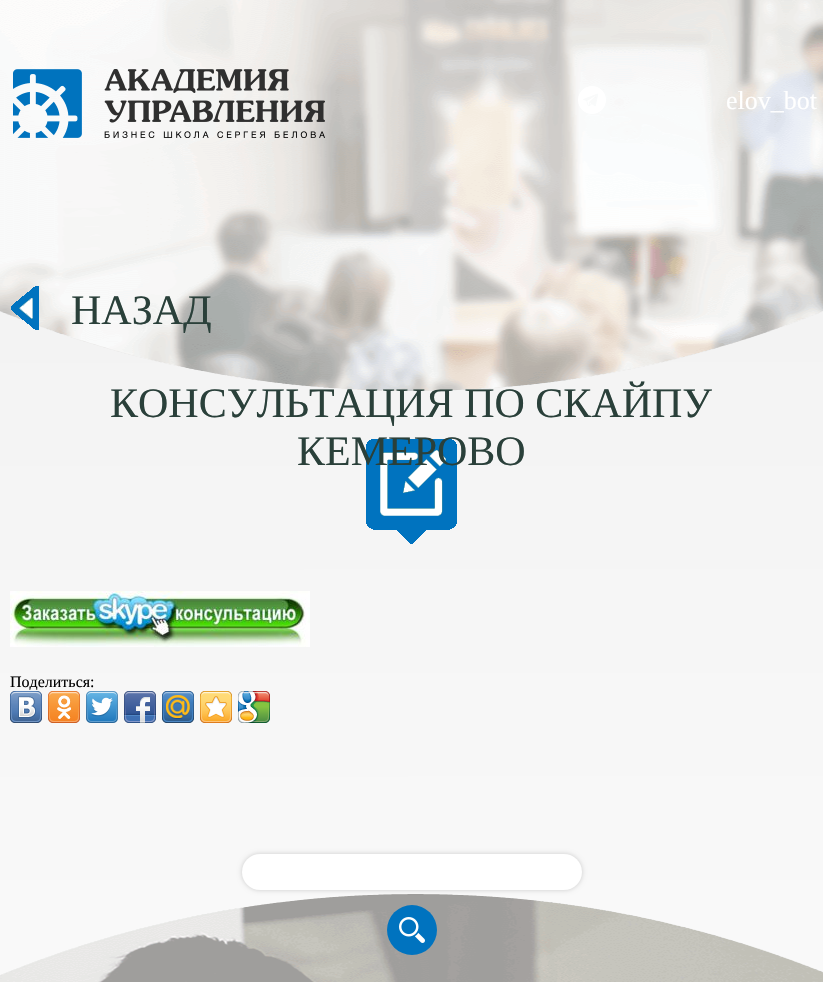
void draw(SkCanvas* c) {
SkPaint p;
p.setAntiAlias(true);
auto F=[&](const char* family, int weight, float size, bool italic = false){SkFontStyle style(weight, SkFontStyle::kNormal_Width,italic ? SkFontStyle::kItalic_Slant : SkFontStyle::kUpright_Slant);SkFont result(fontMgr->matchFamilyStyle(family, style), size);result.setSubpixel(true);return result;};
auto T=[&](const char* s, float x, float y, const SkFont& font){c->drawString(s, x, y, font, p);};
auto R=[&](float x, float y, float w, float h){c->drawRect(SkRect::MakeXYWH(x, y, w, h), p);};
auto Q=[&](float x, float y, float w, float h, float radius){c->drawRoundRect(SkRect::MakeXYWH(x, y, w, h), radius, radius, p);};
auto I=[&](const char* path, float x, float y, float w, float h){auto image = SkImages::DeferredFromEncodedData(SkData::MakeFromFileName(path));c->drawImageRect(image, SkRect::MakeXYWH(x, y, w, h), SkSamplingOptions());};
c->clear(0xffffffff);
{
const SkColor colors[] = {0xfff0f0f0,0xffffffff};
const float stops[] = {0,1};
const SkPoint ends[] = {{411,0}, {412,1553}};
p.setShader(SkGradientShader::MakeLinear(ends, colors, stops, 2, SkTileMode::kClamp));
p.setAlpha(255);
}
R(0,311,823,665);
I("1.png",0,0,823,391);
I("2.png",13,69,312,69);
I("3.png",578,86,28,28);
auto f1 = F("Liberation Serif",400,26);
p.setShader(nullptr);
p.setColor(0xffffffff);
T("elov_bot",726,109,f1);
I("4.png",11,286,28,44);
auto f2 = F("Liberation Serif",400,42);
p.setColor(0xff2a403a);
T("НАЗАД",71,324,f2);
I("5.png",366,439,91,105);
T("КОНСУЛЬТАЦИЯ ПО СКАЙПУ",110,417,f2);
T("КЕМЕРОВО",297,465,f2);
I("6.png",10,591,300,56);
auto f3 = F("Liberation Serif",400,16);
p.setColor(0xff000000);
T("Поделиться:",10,687,f3);
I("7.png",10,691,32,32);
I("8.png",48,691,32,32);
I("9.png",86,691,32,32);
I("10.png",124,691,32,32);
I("11.png",162,691,32,32);
I("12.png",200,691,32,32);
I("13.png",238,691,32,32);
I("14.png",0,894,823,88);
p.setColor(0x2e000000);
p.setMaskFilter(SkMaskFilter::MakeBlur(kNormal_SkBlurStyle, 2.5));
c->drawRoundRect(SkRect::MakeXYWH(242,854,340,36),18,18,p);
p.setMaskFilter(nullptr);
p.setColor(0xffffffff);
Q(242,854,340,36,18);
p.setColor(0xff0073bf);
c->drawCircle(412,930,25,p);
I("15.png",399,917,26,26);
}
